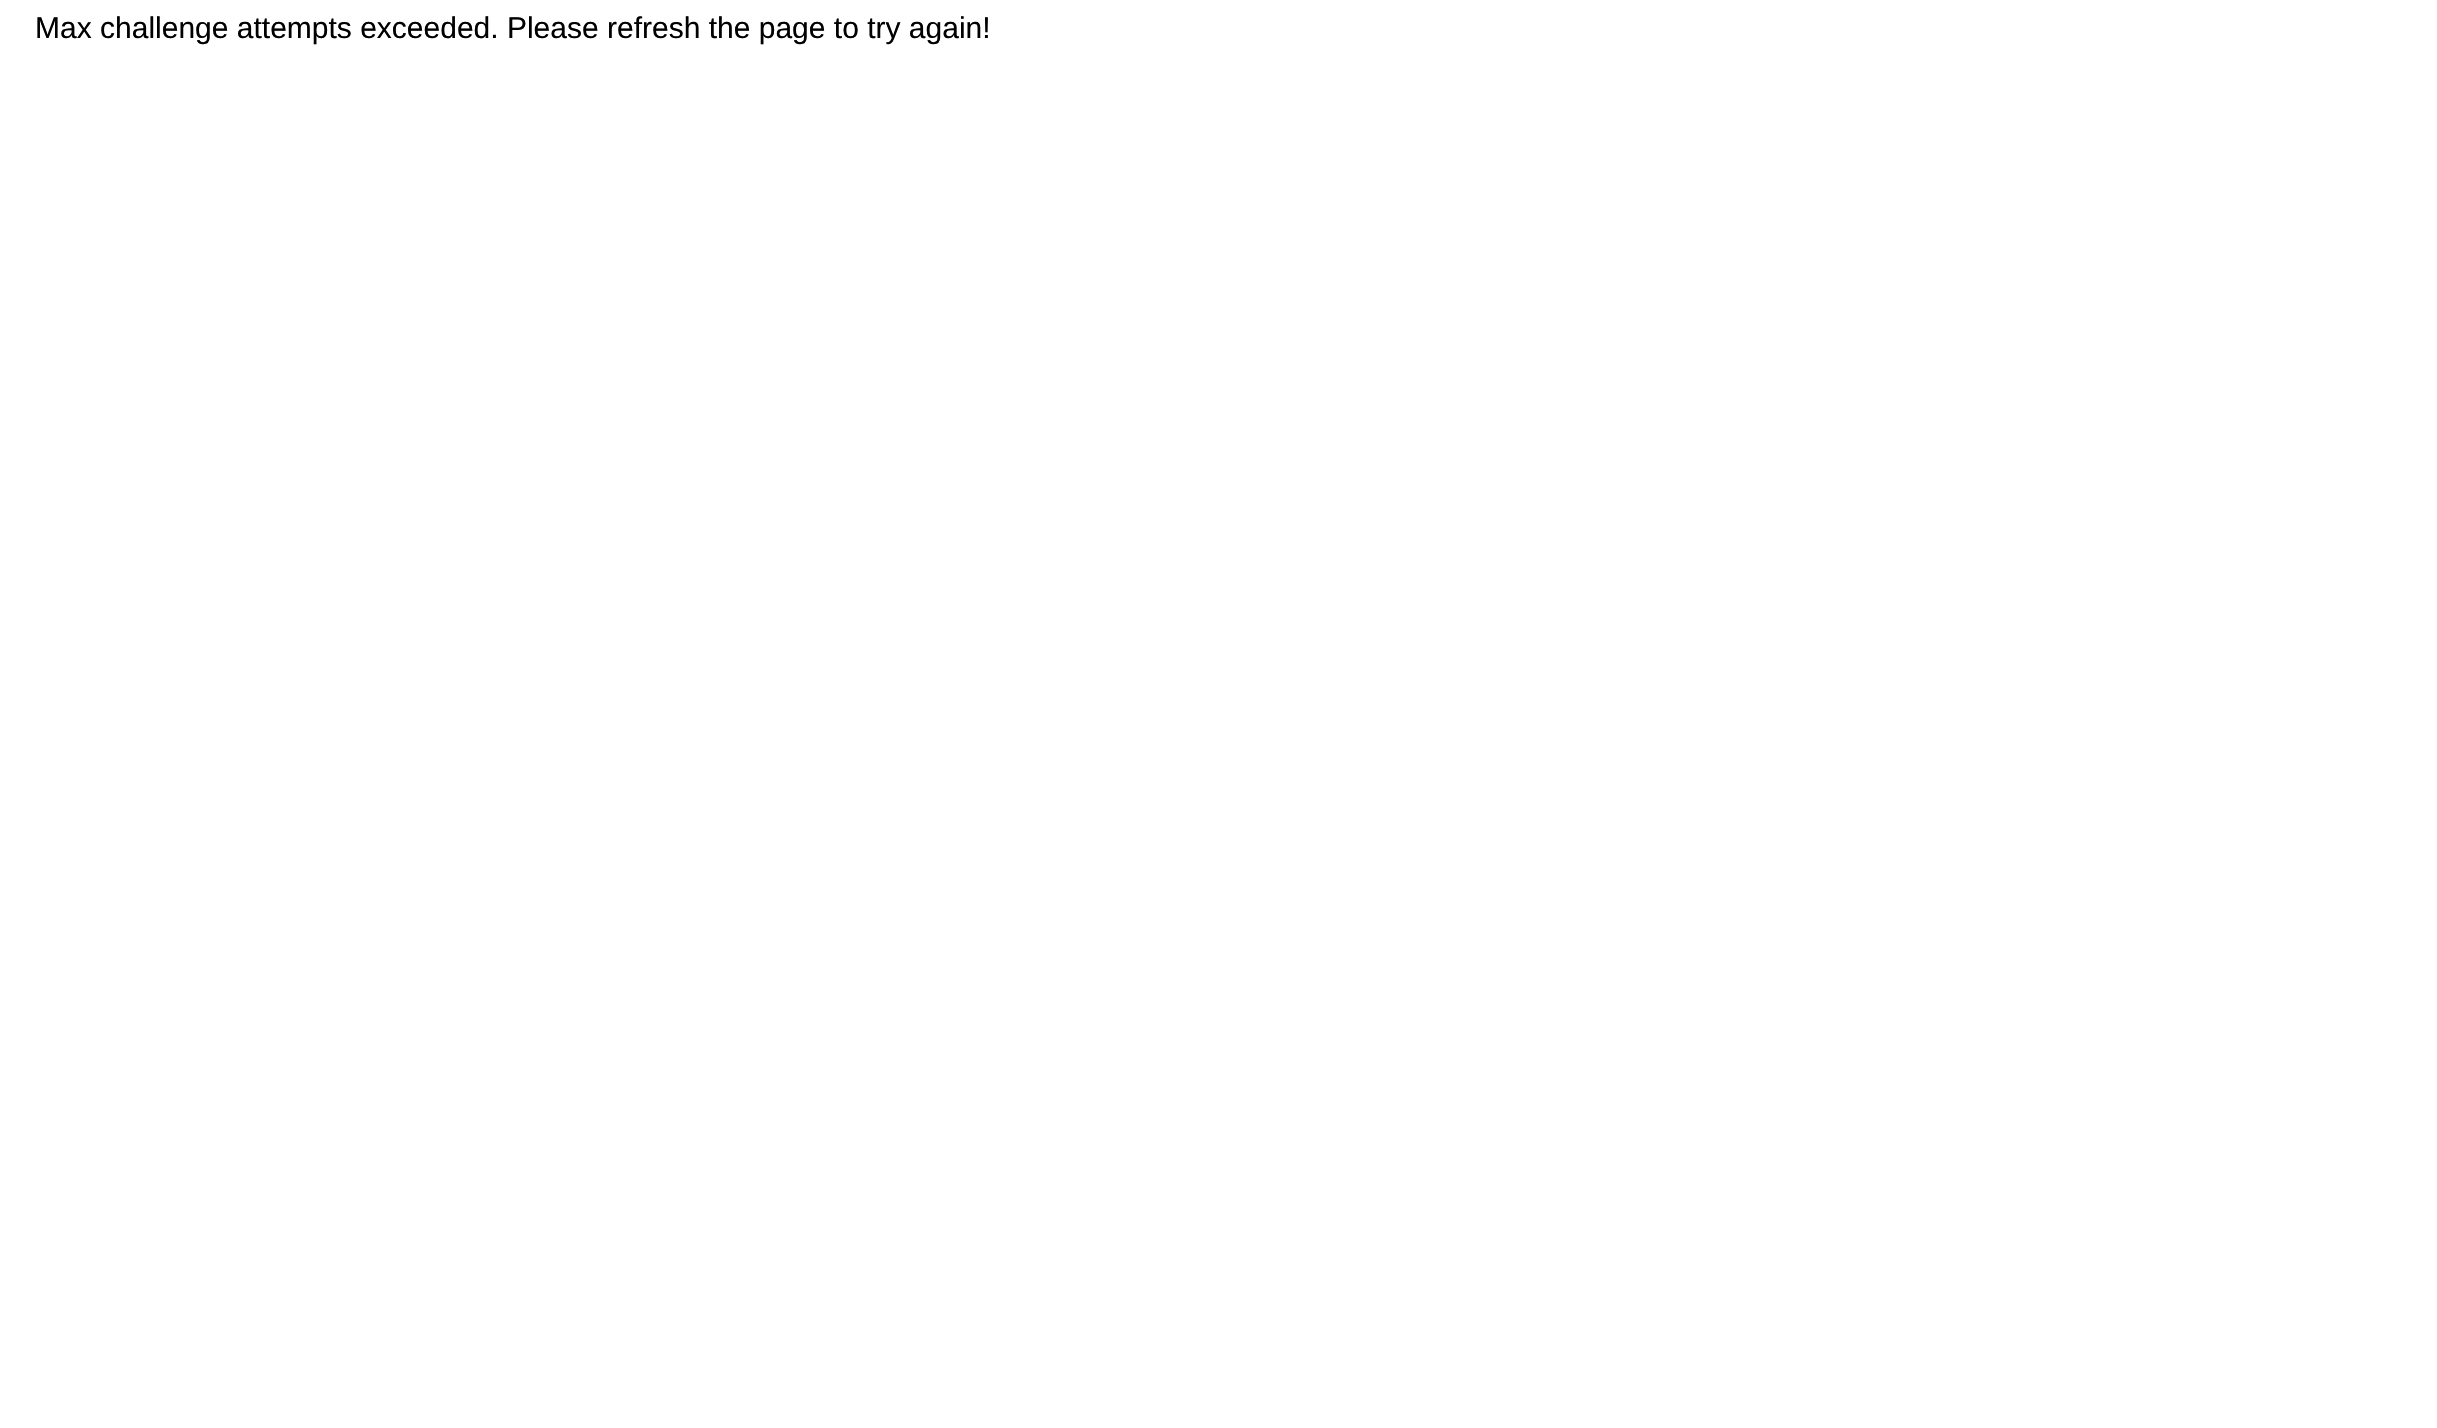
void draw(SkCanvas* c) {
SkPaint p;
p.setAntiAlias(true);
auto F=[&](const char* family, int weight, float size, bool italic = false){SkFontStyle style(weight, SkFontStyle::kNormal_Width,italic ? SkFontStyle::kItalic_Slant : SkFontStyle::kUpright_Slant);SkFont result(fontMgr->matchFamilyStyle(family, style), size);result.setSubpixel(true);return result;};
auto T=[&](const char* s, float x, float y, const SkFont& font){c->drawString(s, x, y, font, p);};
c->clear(0xffffffff);
auto f1 = F("Liberation Sans",400,30);
p.setColor(0xff000000);
T("Max challenge attempts exceeded. Please refresh the page to try again!",35,38,f1);
}
